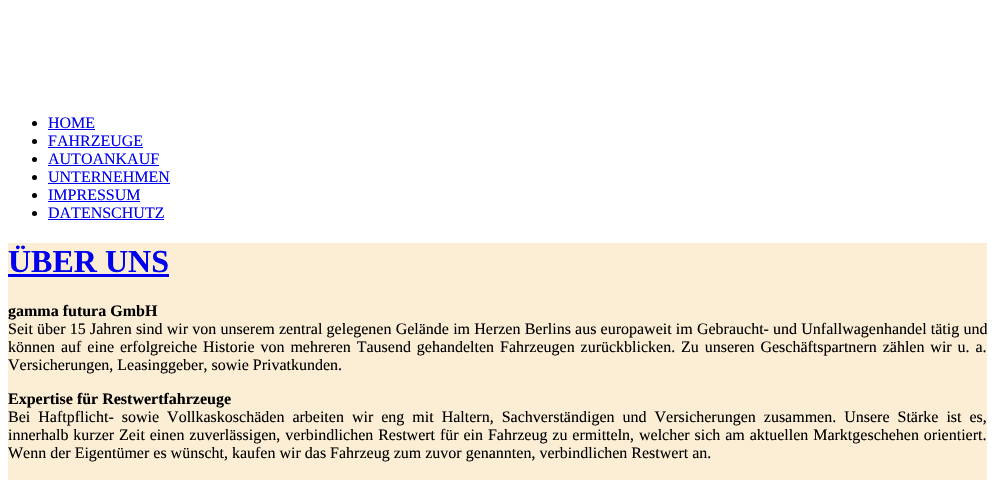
void draw(SkCanvas* c) {
SkPaint p;
p.setAntiAlias(true);
auto F=[&](const char* family, int weight, float size, bool italic = false){SkFontStyle style(weight, SkFontStyle::kNormal_Width,italic ? SkFontStyle::kItalic_Slant : SkFontStyle::kUpright_Slant);SkFont result(fontMgr->matchFamilyStyle(family, style), size);result.setSubpixel(true);return result;};
auto T=[&](const char* s, float x, float y, const SkFont& font){c->drawString(s, x, y, font, p);};
auto L=[&](const char* s, float x, float y, const SkFont& font, const SkPaint& ink, float letter, float word){std::vector<SkGlyphID> glyphs(font.countText(s, strlen(s), SkTextEncoding::kUTF8));std::vector<float> xs(glyphs.size());font.textToGlyphs(s, strlen(s), SkTextEncoding::kUTF8, glyphs);font.getXPos(glyphs, xs, x);float extra = 0;for (size_t i = 0; i < glyphs.size(); i++) {xs[i] += extra;extra += letter + word * (glyphs[i] == font.unicharToGlyph(' '));}c->drawTextBlob(SkTextBlob::MakeFromPosHGlyphs(glyphs, xs, y, font), 0, 0, ink);};
auto R=[&](float x, float y, float w, float h){c->drawRect(SkRect::MakeXYWH(x, y, w, h), p);};
c->clear(0xffffffff);
p.setColor(0xff000000);
c->drawCircle(34.5,123.5,2.5,p);
auto f1 = F("Liberation Serif",400,16);
p.setColor(0xff0000ee);
T("HOME",48,128,f1);
R(48,129,47,1);
p.setColor(0xff000000);
c->drawCircle(34.5,141.5,2.5,p);
p.setColor(0xff0000ee);
T("FAHRZEUGE",48,146,f1);
R(48,147,95,1);
p.setColor(0xff000000);
c->drawCircle(34.5,159.5,2.5,p);
p.setColor(0xff0000ee);
T("AUTOANKAUF",48,164,f1);
R(48,165,111,1);
p.setColor(0xff000000);
c->drawCircle(34.5,177.5,2.5,p);
p.setColor(0xff0000ee);
T("UNTERNEHMEN",48,182,f1);
R(48,183,122,1);
p.setColor(0xff000000);
c->drawCircle(34.5,195.5,2.5,p);
p.setColor(0xff0000ee);
T("IMPRESSUM",48,200,f1);
R(48,201,92,1);
p.setColor(0xff000000);
c->drawCircle(34.5,213.5,2.5,p);
p.setColor(0xff0000ee);
T("DATENSCHUTZ",48,218,f1);
R(48,219,116,1);
p.setColor(0xfffbeed5);
R(8,243,979,237);
auto f2 = F("Liberation Serif",700,32);
p.setColor(0xff0000ee);
T("ÜBER UNS",8,272,f2);
R(8,274,161,3);
auto f3 = F("Liberation Serif",700,16);
p.setColor(0xff000000);
T("gamma futura GmbH",8,316,f3);
L("Seit über 15 Jahren sind wir von unserem zentral gelegenen Gelände im Herzen Berlins aus europaweit im Gebraucht- und Unfallwagenhandel tätig und",8,334,f1,p,0,.2);
L("können auf eine erfolgreiche Historie von mehreren Tausend gehandelten Fahrzeugen zurückblicken. Zu unseren Geschäftspartnern zählen wir u. a.",8,352,f1,p,0,1.9);
T("Versicherungen, Leasinggeber, sowie Privatkunden.",8,370,f1);
T("Expertise für Restwertfahrzeuge",8,404,f3);
L("Bei Haftpflicht- sowie Vollkaskoschäden arbeiten wir eng mit Haltern, Sachverständigen und Versicherungen zusammen. Unsere Stärke ist es,",8,422,f1,p,0,4);
L("innerhalb kurzer Zeit einen zuverlässigen, verbindlichen Restwert für ein Fahrzeug zu ermitteln, welcher sich am aktuellen Marktgeschehen orientiert.",8,440,f1,p,0,.9);
T("Wenn der Eigentümer es wünscht, kaufen wir das Fahrzeug zum zuvor genannten, verbindlichen Restwert an.",8,458,f1);
}
